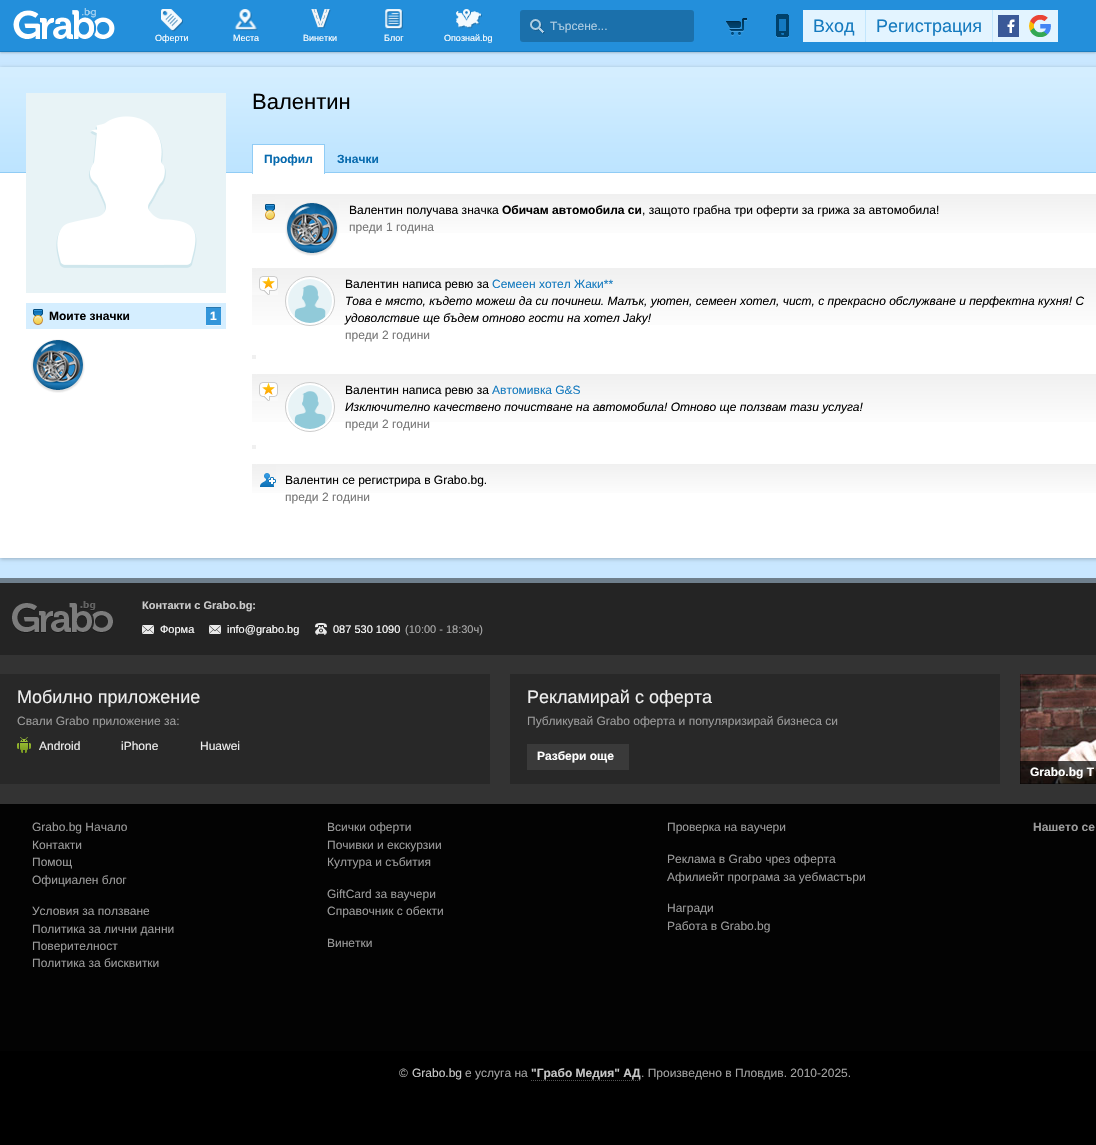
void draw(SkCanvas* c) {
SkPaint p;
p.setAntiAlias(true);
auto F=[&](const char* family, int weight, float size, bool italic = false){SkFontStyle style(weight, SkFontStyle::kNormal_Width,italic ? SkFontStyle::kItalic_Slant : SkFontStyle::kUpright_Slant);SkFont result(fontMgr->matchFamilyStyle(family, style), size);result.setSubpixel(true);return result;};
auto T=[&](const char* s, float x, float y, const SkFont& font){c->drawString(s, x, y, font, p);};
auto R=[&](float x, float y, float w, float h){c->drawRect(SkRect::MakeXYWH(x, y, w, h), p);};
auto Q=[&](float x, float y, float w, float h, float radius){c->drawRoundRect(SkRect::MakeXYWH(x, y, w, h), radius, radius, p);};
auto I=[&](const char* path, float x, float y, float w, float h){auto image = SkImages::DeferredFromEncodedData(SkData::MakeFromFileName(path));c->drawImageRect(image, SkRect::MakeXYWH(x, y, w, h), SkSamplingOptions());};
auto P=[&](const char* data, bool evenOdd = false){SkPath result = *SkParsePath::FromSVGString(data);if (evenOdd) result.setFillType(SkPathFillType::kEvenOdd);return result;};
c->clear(0xff000000);
p.setColor(0xffc9e7ff);
R(0,52,1096,526);
p.setColor(0x33000000);
p.setMaskFilter(SkMaskFilter::MakeBlur(kNormal_SkBlurStyle, 1));
c->drawRect(SkRect::MakeXYWH(0,1,1096,52),p);
p.setMaskFilter(nullptr);
p.setColor(0xff238fdb);
R(0,0,1096,51);
p.setColor(0xff197dc1);
R(0,51,1096,1);
I("1.png",13,8,102,31);
p.setColor(0xff1b70ab);
Q(520,10,174,32,3);
I("2.png",530,19,15,15);
auto f1 = F("Liberation Sans",400,12);
p.setColor(0xffafcde2);
T("Търсене...",550,30,f1);
I("3.png",161,9,22,23);
auto f2 = F("Liberation Sans",400,9);
p.setColor(0xffffffff);
T("Оферти",155,41,f2);
I("4.png",234,9,24,22);
T("Места",233,41,f2);
I("5.png",311,9,20,20);
T("Винетки",303,41,f2);
I("6.png",385,9,18,21);
T("Блог",384,41,f2);
I("7.png",456,9,26,20);
T("Опознай.bg",444,41,f2);
I("8.png",726,18,21,18);
I("9.png",776,14,13,24);
p.setColor(0xffc2e6fd);
R(865,10,1,32);
R(992,10,1,32);
p.setColor(0xffe3f4ff);
R(993,10,65,32);
I("10.png",1029,15,22,22);
R(803,10,62,32);
auto f3 = F("Liberation Sans",400,18);
p.setColor(0xff167bbf);
T("Вход",813,32,f3);
p.setColor(0xffe3f4ff);
R(866,10,126,32);
p.setColor(0xff167bbf);
T("Регистрация",876,32,f3);
I("11.png",998,15,21,22);
p.setColor(0xff6f7f8c);
R(0,578,1096,5);
p.setColor(0x40000000);
p.setMaskFilter(SkMaskFilter::MakeBlur(kNormal_SkBlurStyle, 2));
c->drawRect(SkRect::MakeXYWH(0,68,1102,491),p);
p.setMaskFilter(nullptr);
p.setColor(0xffd4eeff);
R(0,67,1096,10);
p.setColor(0xffffffff);
R(0,173,1096,385);
I("12.png",0,77,1096,96);
I("13.png",26,93,200,200);
I("14.png",26,303,200,26);
auto f4 = F("Liberation Sans",700,12);
p.setColor(0xff000000);
T("Моите значки",49,320,f4);
p.setColor(0xff3295da);
R(206,308,15,17);
p.setColor(0xff2878b0);
R(206,307,15,1);
p.setColor(0xffe8f6ff);
R(206,325,15,1);
p.setColor(0xffffffff);
T("1",210,320,f4);
I("16.png",33,340,50,50);
I("15.png",31,339,54,54);
auto f5 = F("Liberation Sans",400,22);
p.setColor(0xff000000);
T("Валентин",252,109,f5);
p.setColor(0xffffffff);
R(253,145,71,28);
p.setColor(0xff90ccf5);
R(252,144,73,1);
R(324,144,1,30);
R(252,144,1,30);
p.setColor(0xff076aae);
T("Профил",264,163,f4);
T("Значки",337,163,f4);
{
const SkColor colors[] = {0xfff0f0f0,0xffffffff};
const float stops[] = {0,.66};
const SkPoint ends[] = {{738,194}, {738,265}};
p.setShader(SkGradientShader::MakeLinear(ends, colors, stops, 2, SkTileMode::kClamp));
p.setAlpha(255);
}
R(252,194,844,39);
I("17.png",252,194,23,26);
p.setShader(nullptr);
p.setColor(0xfff0f0f0);
R(252,194,4,4);
I("16.png",287,203,50,50);
I("18.png",285,202,54,54);
p.setColor(0xff000000);
T("Валентин получава значка",349,214,f1);
T("Обичам автомобила си",502,214,f4);
T(", защото грабна три оферти за грижа за автомобила!",642,214,f1);
p.setColor(0xff777777);
T("преди 1 година",349,231,f1);
{
const SkColor colors[] = {0xfff0f0f0,0xffffffff};
const float stops[] = {0,.66};
const SkPoint ends[] = {{738,268}, {738,371}};
p.setShader(SkGradientShader::MakeLinear(ends, colors, stops, 2, SkTileMode::kClamp));
p.setAlpha(255);
}
R(252,268,844,57);
I("19.png",252,268,26,27);
p.setShader(nullptr);
p.setColor(0xfff0f0f0);
R(252,268,4,4);
p.setColor(0xffffffff);
c->drawCircle(310,301,24.5,p);
p.setStroke(true);
p.setStrokeWidth(1);
p.setColor(0xffcccccc);
c->drawCircle(310,301,24.5,p);
I("20.png",288,279,44,44);
p.setStroke(false);
p.setColor(0xff000000);
T("Валентин написа ревю за",345,288,f1);
p.setColor(0xff167bbf);
T("Семеен хотел Жаки**",492,288,f1);
auto f6 = F("Liberation Sans",400,12,true);
p.setColor(0xff000000);
T("Това е място, където можеш да си починеш. Малък, уютен, семеен хотел, чист, с прекрасно обслужване и перфектна кухня! С",345,305,f6);
T("удоволствие ще бъдем отново гости на хотел Jaky!",345,322,f6);
p.setColor(0xff777777);
T("преди 2 години",345,339,f1);
p.setColor(0xfff0f0f0);
R(252,355,4,4);
{
const SkColor colors[] = {0xfff0f0f0,0xffffffff};
const float stops[] = {0,.66};
const SkPoint ends[] = {{738,374}, {738,461}};
p.setShader(SkGradientShader::MakeLinear(ends, colors, stops, 2, SkTileMode::kClamp));
p.setAlpha(255);
}
R(252,374,844,48);
I("19.png",252,374,26,27);
p.setShader(nullptr);
p.setColor(0xfff0f0f0);
R(252,374,4,4);
p.setColor(0xffffffff);
c->drawCircle(310,407,24.5,p);
p.setStroke(true);
p.setColor(0xffcccccc);
c->drawCircle(310,407,24.5,p);
I("21.png",288,385,44,44);
p.setStroke(false);
p.setColor(0xff000000);
T("Валентин написа ревю за",345,394,f1);
p.setColor(0xff167bbf);
T("Автомивка G&S",492,394,f1);
p.setColor(0xff000000);
T("Изключително качествено почистване на автомобила! Отново ще ползвам тази услуга!",345,411,f6);
p.setColor(0xff777777);
T("преди 2 години",345,428,f1);
p.setColor(0xfff0f0f0);
R(252,445,4,4);
{
const SkColor colors[] = {0xfff0f0f0,0xffffffff};
const float stops[] = {0,.66};
const SkPoint ends[] = {{738,464}, {738,517}};
p.setShader(SkGradientShader::MakeLinear(ends, colors, stops, 2, SkTileMode::kClamp));
p.setAlpha(255);
}
R(252,464,844,29);
I("22.png",252,464,24,23);
p.setShader(nullptr);
p.setColor(0xfff0f0f0);
R(252,464,4,4);
p.setColor(0xff000000);
T("Валентин се регистрира в Grabo.bg.",285,484,f1);
p.setColor(0xff777777);
T("преди 2 години",285,501,f1);
p.setColor(0xff242424);
R(0,583,1096,72);
I("23.png",12,601,101,32);
auto f7 = F("Liberation Sans",700,11);
p.setColor(0xffcccccc);
T("Контакти с Grabo.bg:",142,609,f7);
I("24.png",142,625,12,9);
auto f8 = F("Liberation Sans",400,11);
p.setColor(0xffffffff);
T("Форма",160,633,f8);
I("24.png",209,625,12,9);
T("info@grabo.bg",227,633,f8);
I("25.png",315,623,12,12);
T("087 530 1090",333,633,f8);
p.setColor(0xffaaaaaa);
T("(10:00 - 18:30ч)",405,633,f8);
p.setColor(0xff333333);
R(0,655,1096,149);
p.setColor(0xff282828);
R(0,674,490,110);
p.setColor(0xffeeeeee);
T("Мобилно приложение",17,703,f3);
p.setColor(0xff9b9b9b);
T("Свали Grabo приложение за:",17,725,f1);
I("26.png",17,737,14,16);
p.setColor(0xffeeeeee);
T("Android",39,750,f1);
T("iPhone",121,750,f1);
T("Huawei",200,750,f1);
p.setColor(0xff282828);
R(510,674,490,110);
p.setColor(0xffeeeeee);
T("Рекламирай с оферта",527,703,f3);
p.setColor(0xff9b9b9b);
T("Публикувай Grabo оферта и популяризирай бизнеса си",527,725,f1);
p.setColor(0xff3a3a3a);
R(527,744,102,26);
p.setColor(0xffffffff);
T("Разбери още",537,760,f4);
I("27.png",1020,674,76,110);
p.setColor(0x66000000);
R(1020,783,76,1);
R(1020,674,76,1);
R(1020,674,1,110);
p.setColor(0xb3000000);
R(1020,761,76,23);
p.setColor(0xffffffff);
T("Grabo.bg T",1030,776,f4);
p.setColor(0xff030303);
R(0,804,1096,247);
p.setColor(0xff9b9b9b);
T("Grabo.bg Начало",32,831,f1);
T("Контакти",32,849,f1);
T("Помощ",32,866,f1);
T("Официален блог",32,884,f1);
T("Условия за ползване",32,915,f1);
T("Политика за лични данни",32,933,f1);
T("Поверителност",32,950,f1);
T("Политика за бисквитки",32,967,f1);
T("Всички оферти",327,831,f1);
T("Почивки и екскурзии",327,849,f1);
T("Култура и събития",327,866,f1);
T("GiftCard за ваучери",327,898,f1);
T("Справочник с обекти",327,915,f1);
T("Винетки",327,947,f1);
T("Проверка на ваучери",667,831,f1);
T("Реклама в Grabo чрез оферта",667,863,f1);
T("Афилиейт програма за уебмастъри",667,881,f1);
T("Награди",667,912,f1);
T("Работа в Grabo.bg",667,930,f1);
T("Нашето се",1033,831,f4);
p.setColor(0xffa2a2a2);
T("©",399,1077,f1);
p.setColor(0xffcccccc);
T("Grabo.bg",412,1077,f1);
p.setColor(0xffa2a2a2);
T("е услуга на",465,1077,f1);
p.setColor(0xffc5c5c5);
T("\"Грабо Медия\" АД",531,1077,f4);
p.setStroke(true);
p.setColor(0xff575757);
p.setPathEffect(SkDashPathEffect::Make({{1,1}}, 0));
c->drawPath(P("M531 1080.5h110"),p);
p.setPathEffect(nullptr);
p.setStroke(false);
p.setColor(0xffa2a2a2);
T(". Произведено в Пловдив. 2010-2025.",641,1077,f1);
}
